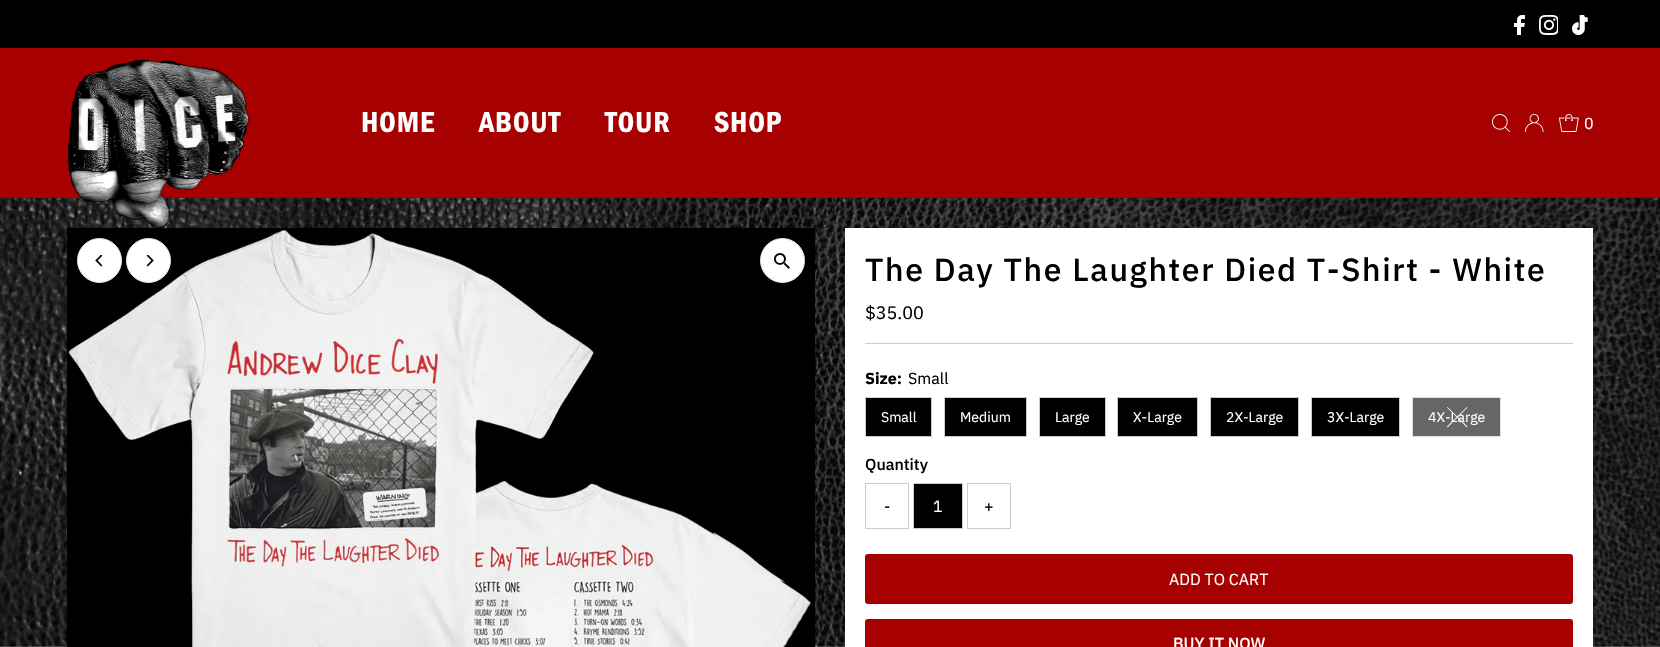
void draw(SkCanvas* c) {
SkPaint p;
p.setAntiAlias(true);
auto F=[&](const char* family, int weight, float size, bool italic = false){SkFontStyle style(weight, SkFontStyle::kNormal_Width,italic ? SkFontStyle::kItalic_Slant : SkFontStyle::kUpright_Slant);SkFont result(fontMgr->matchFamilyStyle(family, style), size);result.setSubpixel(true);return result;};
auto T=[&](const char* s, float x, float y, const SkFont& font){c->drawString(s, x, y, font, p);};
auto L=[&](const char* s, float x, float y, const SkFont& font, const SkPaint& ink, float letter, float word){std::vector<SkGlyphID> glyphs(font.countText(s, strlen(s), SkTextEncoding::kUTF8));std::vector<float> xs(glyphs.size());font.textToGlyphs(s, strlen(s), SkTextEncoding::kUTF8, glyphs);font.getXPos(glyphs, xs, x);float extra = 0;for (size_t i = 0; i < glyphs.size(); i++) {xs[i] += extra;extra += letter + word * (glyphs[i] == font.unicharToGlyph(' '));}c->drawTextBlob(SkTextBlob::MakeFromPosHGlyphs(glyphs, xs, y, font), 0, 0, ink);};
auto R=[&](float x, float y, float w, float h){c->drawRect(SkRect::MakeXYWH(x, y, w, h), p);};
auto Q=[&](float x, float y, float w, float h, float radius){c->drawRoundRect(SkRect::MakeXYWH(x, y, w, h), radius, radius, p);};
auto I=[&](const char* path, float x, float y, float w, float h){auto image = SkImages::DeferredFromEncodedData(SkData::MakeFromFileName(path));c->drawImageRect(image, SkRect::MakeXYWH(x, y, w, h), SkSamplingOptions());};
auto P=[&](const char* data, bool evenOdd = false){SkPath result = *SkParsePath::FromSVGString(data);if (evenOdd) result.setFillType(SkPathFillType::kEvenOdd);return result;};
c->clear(0xffffffff);
I("1.png",0,198,1660,449);
p.setColor(0xff000000);
R(0,0,1660,48);
I("2.png",1514,15,11,20);
I("3.png",1539,15,19,20);
I("4.png",1572,15,16,20);
p.setColor(0xffa60000);
R(0,48,1660,150);
I("5.png",68,59,182,169);
auto f1 = F("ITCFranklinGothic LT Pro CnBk",600,30);
p.setColor(0xffffffff);
L("HOME",361,132,f1,p,.75,0);
L("ABOUT",479,132,f1,p,.75,0);
L("TOUR",605,132,f1,p,.75,0);
L("SHOP",714,132,f1,p,.75,0);
I("6.png",1492,114,18,18);
I("7.png",1525,114,19,18);
I("8.png",1559,114,20,18);
auto f2 = F("IBM Plex Sans",400,16);
T("0",1584,129,f2);
p.setColor(0xff000000);
R(67,228,748,419);
I("9.png",68,230,743,417);
p.setColor(0xffffffff);
c->drawCircle(782.5,260.5,22,p);
p.setStroke(true);
p.setStrokeWidth(1);
p.setColor(0xffe7e7e7);
c->drawCircle(782.5,260.5,22,p);
I("10.png",774,253,16,16);
p.setStroke(false);
p.setColor(0xffffffff);
c->drawCircle(99.5,260.5,22,p);
p.setStroke(true);
p.setColor(0xffe7e7e7);
c->drawCircle(99.5,260.5,22,p);
I("11.png",95,255,8,12);
p.setStroke(false);
p.setColor(0xffffffff);
c->drawCircle(148.5,260.5,22,p);
p.setStroke(true);
p.setColor(0xffe7e7e7);
c->drawCircle(148.5,260.5,22,p);
I("12.png",146,255,8,12);
p.setStroke(false);
p.setColor(0xffffffff);
R(845,228,748,419);
auto f3 = F("IBM Plex Sans",500,32);
p.setColor(0xff000000);
L("The Day The Laughter Died T-Shirt - White",865,281,f3,p,1.6,0);
p.setColor(0xffcccccc);
R(865,343,708,1);
auto f4 = F("IBM Plex Sans",400,18);
p.setColor(0xff000000);
T("$35.00",865,319,f4);
auto f5 = F("IBM Plex Sans",700,16);
T("Size:",865,384,f5);
T("Small",908,384,f2);
c->drawRect(SkRect::MakeXYWH(865.5,397.5,66,39),p);
p.setStroke(true);
p.setColor(0xffcccccc);
c->drawRect(SkRect::MakeXYWH(865.5,397.5,66,39),p);
auto f6 = F("IBM Plex Sans",400,14);
p.setStroke(false);
p.setColor(0xffffffff);
T("Small",881,422,f6);
p.setColor(0xff000000);
c->drawRect(SkRect::MakeXYWH(944.5,397.5,82,39),p);
p.setStroke(true);
p.setColor(0xffcccccc);
c->drawRect(SkRect::MakeXYWH(944.5,397.5,82,39),p);
p.setStroke(false);
p.setColor(0xffffffff);
T("Medium",960,422,f6);
p.setColor(0xff000000);
c->drawRect(SkRect::MakeXYWH(1039.5,397.5,66,39),p);
p.setStroke(true);
p.setColor(0xffcccccc);
c->drawRect(SkRect::MakeXYWH(1039.5,397.5,66,39),p);
p.setStroke(false);
p.setColor(0xffffffff);
T("Large",1055,422,f6);
p.setColor(0xff000000);
c->drawRect(SkRect::MakeXYWH(1117.5,397.5,80,39),p);
p.setStroke(true);
p.setColor(0xffcccccc);
c->drawRect(SkRect::MakeXYWH(1117.5,397.5,80,39),p);
p.setStroke(false);
p.setColor(0xffffffff);
T("X-Large",1133,422,f6);
p.setColor(0xff000000);
c->drawRect(SkRect::MakeXYWH(1210.5,397.5,88,39),p);
p.setStroke(true);
p.setColor(0xffcccccc);
c->drawRect(SkRect::MakeXYWH(1210.5,397.5,88,39),p);
p.setStroke(false);
p.setColor(0xffffffff);
T("2X-Large",1226,422,f6);
p.setColor(0xff000000);
c->drawRect(SkRect::MakeXYWH(1311.5,397.5,88,39),p);
p.setStroke(true);
p.setColor(0xffcccccc);
c->drawRect(SkRect::MakeXYWH(1311.5,397.5,88,39),p);
p.setStroke(false);
p.setColor(0xffffffff);
T("3X-Large",1327,422,f6);
p.setColor(0xff666666);
c->drawRect(SkRect::MakeXYWH(1412.5,397.5,88,39),p);
p.setStroke(true);
p.setColor(0xffe0e0e0);
c->drawRect(SkRect::MakeXYWH(1412.5,397.5,88,39),p);
p.setStroke(false);
p.setColor(0xffffffff);
c->drawPath(P("M1467 407l.5 .5l-20 20l-.5-1z"),p);
c->drawPath(P("M1467.5 426.5l-.5 1l-20-20l.5-.5z"),p);
T("4X-Large",1428,422,f6);
auto f7 = F("IBM Plex Sans",500,16);
p.setColor(0xff000000);
T("Quantity",865,470,f7);
p.setStroke(true);
p.setColor(0xffcccccc);
c->drawRect(SkRect::MakeXYWH(865.5,483.5,43,45),p);
p.setStroke(false);
p.setColor(0xff000000);
T("-",884,512,f2);
c->drawRect(SkRect::MakeXYWH(913.5,483.5,49,45),p);
p.setStroke(true);
p.setColor(0xffcccccc);
c->drawRect(SkRect::MakeXYWH(913.5,483.5,49,45),p);
p.setStroke(false);
p.setColor(0xffffffff);
T("1",933,512,f2);
p.setStroke(true);
p.setColor(0xffcccccc);
c->drawRect(SkRect::MakeXYWH(967.5,483.5,43,45),p);
p.setStroke(false);
p.setColor(0xff000000);
T("+",984,512,f2);
p.setColor(0xffa60000);
Q(865,554,708,50,3);
p.setColor(0xffffffff);
T("ADD TO CART",1169,585,f2);
p.setColor(0xffa60000);
Q(865,619,708,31,3);
p.setColor(0xffffffff);
T("BUY IT NOW",1173,649,f7);
}
